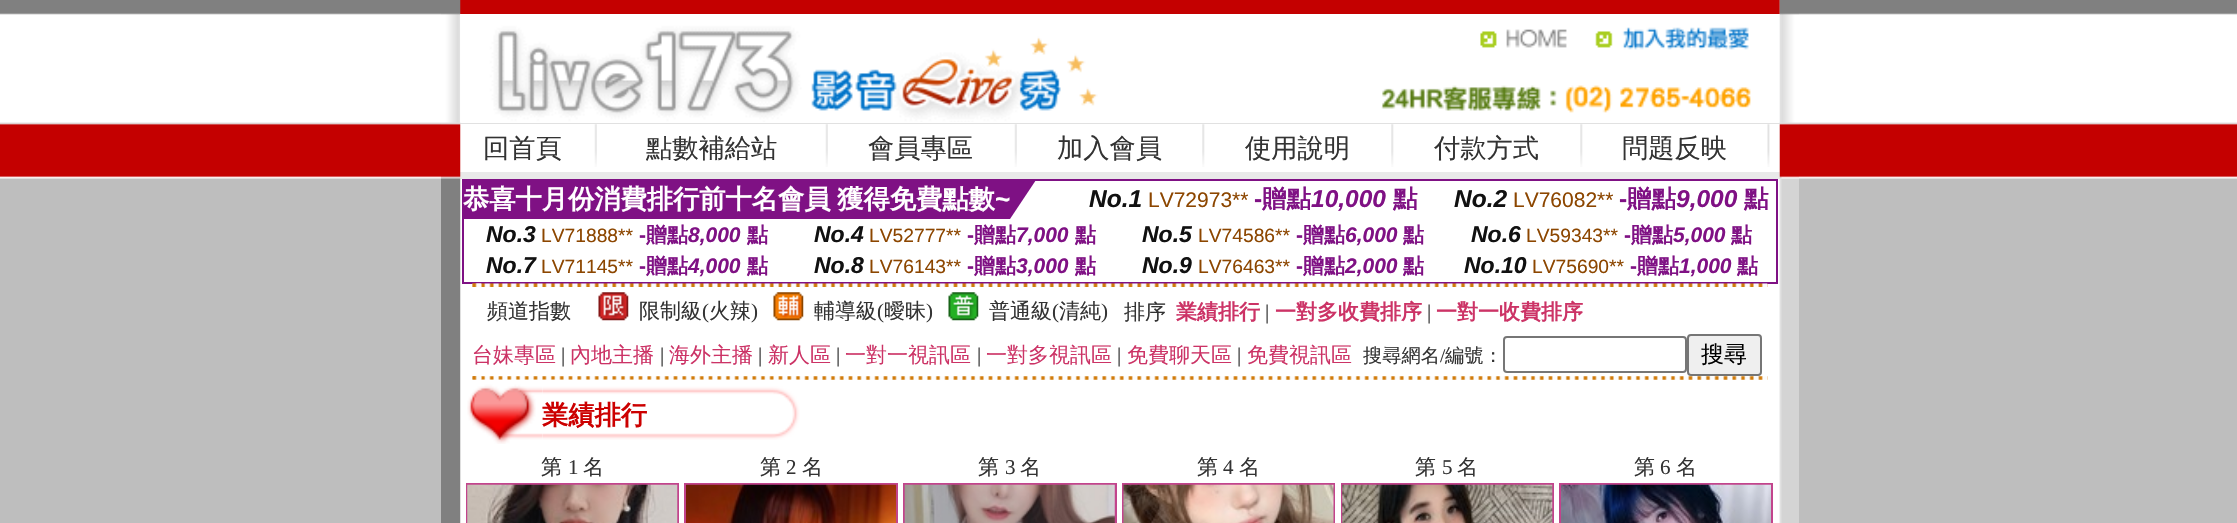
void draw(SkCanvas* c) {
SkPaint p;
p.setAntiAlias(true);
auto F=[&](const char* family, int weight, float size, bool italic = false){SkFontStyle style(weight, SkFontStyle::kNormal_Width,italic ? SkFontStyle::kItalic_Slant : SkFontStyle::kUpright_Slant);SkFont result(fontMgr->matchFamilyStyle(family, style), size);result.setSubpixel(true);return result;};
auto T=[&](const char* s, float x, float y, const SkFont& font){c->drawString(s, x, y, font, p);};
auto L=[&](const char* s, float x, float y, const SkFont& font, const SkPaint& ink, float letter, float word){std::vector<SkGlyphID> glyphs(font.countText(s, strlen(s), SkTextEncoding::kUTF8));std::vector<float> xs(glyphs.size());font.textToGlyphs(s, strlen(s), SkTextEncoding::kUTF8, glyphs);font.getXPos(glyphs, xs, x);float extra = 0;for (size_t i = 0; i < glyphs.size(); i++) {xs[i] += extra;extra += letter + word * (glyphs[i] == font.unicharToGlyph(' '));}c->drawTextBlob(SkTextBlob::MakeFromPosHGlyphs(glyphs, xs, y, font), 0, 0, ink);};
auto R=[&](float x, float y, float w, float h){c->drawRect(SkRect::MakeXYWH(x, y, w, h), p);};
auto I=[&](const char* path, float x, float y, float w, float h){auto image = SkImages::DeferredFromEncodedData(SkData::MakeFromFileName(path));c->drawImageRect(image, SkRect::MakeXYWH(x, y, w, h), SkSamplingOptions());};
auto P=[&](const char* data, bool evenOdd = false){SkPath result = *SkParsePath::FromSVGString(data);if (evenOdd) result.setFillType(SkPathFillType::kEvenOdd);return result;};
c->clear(0xffffffff);
I("1.png",0,0,2237,523);
p.setColor(0xffffffff);
R(460,14,1320,509);
p.setColor(0xffc40000);
R(460,0,1320,14);
p.setColor(0xffe1e1e1);
R(460,123,1320,1);
p.setColor(0xffe9e9e9);
R(460,172,1320,7);
I("2.png",441,0,20,523);
I("3.png",460,14,638,108);
I("4.png",1480,29,87,19);
I("26.png",1779,0,1,523);
I("5.png",1595,14,185,47);
I("6.png",1381,61,399,61);
auto f1 = F("WenQuanYi Zen Hei",500,26.25);
p.setColor(0xff333333);
T("回首頁",483,157,f1);
I("7.png",594,124,3,43);
T("點數補給站",646,157,f1);
I("7.png",825,124,3,43);
T("會員專區",868,157,f1);
I("7.png",1014,124,3,43);
T("加入會員",1057,157,f1);
I("8.png",1202,124,3,43);
T("使用說明",1245,157,f1);
I("8.png",1391,124,3,43);
T("付款方式",1434,157,f1);
I("8.png",1580,124,3,43);
T("問題反映",1622,157,f1);
I("9.png",1767,124,3,43);
p.setStroke(true);
p.setStrokeWidth(2);
p.setColor(0xff7f1184);
c->drawRect(SkRect::MakeXYWH(463,180,1314,103),p);
p.setStroke(false);
R(464,181,546,38);
auto f2 = F("WenQuanYi Zen Hei",700,26.25);
p.setColor(0xffffffff);
L("恭喜十月份消費排行前十名會員 獲得免費點數",463,208,f2,p,0,-1);
auto f3 = F("Liberation Sans",700,26.25);
T("~",995,208,f3);
p.setColor(0xff7e1184);
c->drawPath(P("M1010 180h26l-26 39z"),p);
auto f4 = F("Liberation Sans",700,24.5,true);
p.setColor(0xff111111);
T("No.1",1089,207,f4);
auto f5 = F("Liberation Sans",400,21);
p.setColor(0xff8c4600);
T("LV72973**",1148,207,f5);
auto f6 = F("Liberation Sans",700,24.5);
p.setColor(0xff7f1184);
T("-",1254,207,f6);
auto f7 = F("WenQuanYi Zen Hei",700,24.5);
T("贈點",1262,207,f7);
T("10,000",1311,207,f4);
T("點",1393,207,f7);
p.setColor(0xff111111);
T("No.2",1454,207,f4);
p.setColor(0xff8c4600);
T("LV76082**",1513,207,f5);
p.setColor(0xff7f1184);
T("-",1619,207,f6);
T("贈點",1627,207,f7);
T("9,000",1676,207,f4);
T("點",1744,207,f7);
auto f8 = F("Liberation Sans",700,23,true);
p.setColor(0xff111111);
T("No.3",486,242,f8);
auto f9 = F("Liberation Sans",400,19.25);
p.setColor(0xff8c4600);
T("LV71888**",541,242,f9);
auto f10 = F("Liberation Sans",700,21);
p.setColor(0xff7f1184);
T("-",639,242,f10);
auto f11 = F("WenQuanYi Zen Hei",700,21);
T("贈點",646,242,f11);
auto f12 = F("Liberation Sans",700,21,true);
T("8,000",688,242,f12);
T("點",747,242,f11);
p.setColor(0xff111111);
T("No.4",814,242,f8);
p.setColor(0xff8c4600);
T("LV52777**",869,242,f9);
p.setColor(0xff7f1184);
T("-",967,242,f10);
T("贈點",974,242,f11);
T("7,000",1016,242,f12);
T("點",1075,242,f11);
p.setColor(0xff111111);
T("No.5",1142,242,f8);
p.setColor(0xff8c4600);
T("LV74586**",1198,242,f9);
p.setColor(0xff7f1184);
T("-",1296,242,f10);
T("贈點",1303,242,f11);
T("6,000",1345,242,f12);
T("點",1403,242,f11);
p.setColor(0xff111111);
T("No.6",1471,242,f8);
p.setColor(0xff8c4600);
T("LV59343**",1526,242,f9);
p.setColor(0xff7f1184);
T("-",1624,242,f10);
T("贈點",1631,242,f11);
T("5,000",1673,242,f12);
T("點",1731,242,f11);
p.setColor(0xff111111);
T("No.7",486,273,f8);
p.setColor(0xff8c4600);
T("LV71145**",541,273,f9);
p.setColor(0xff7f1184);
T("-",639,273,f10);
T("贈點",646,273,f11);
T("4,000",688,273,f12);
T("點",747,273,f11);
p.setColor(0xff111111);
T("No.8",814,273,f8);
p.setColor(0xff8c4600);
T("LV76143**",869,273,f9);
p.setColor(0xff7f1184);
T("-",967,273,f10);
T("贈點",974,273,f11);
T("3,000",1016,273,f12);
T("點",1075,273,f11);
p.setColor(0xff111111);
T("No.9",1142,273,f8);
p.setColor(0xff8c4600);
T("LV76463**",1198,273,f9);
p.setColor(0xff7f1184);
T("-",1296,273,f10);
T("贈點",1303,273,f11);
T("2,000",1345,273,f12);
T("點",1403,273,f11);
p.setColor(0xff111111);
T("No.10",1464,273,f8);
p.setColor(0xff8c4600);
T("LV75690**",1532,273,f9);
p.setColor(0xff7f1184);
T("-",1630,273,f10);
T("贈點",1637,273,f11);
T("1,000",1679,273,f12);
T("點",1737,273,f11);
I("10.png",472,283,1296,4);
I("11.png",472,283,10,4);
auto f13 = F("WenQuanYi Zen Hei",500,21);
p.setColor(0xff333333);
T("頻道指數",487,318,f13);
I("12.png",598,292,31,29);
T("限制級",639,318,f13);
auto f14 = F("Liberation Serif",400,21);
T("(",702,318,f14);
T("火辣",709,318,f13);
T(")",751,318,f14);
I("13.png",773,292,31,29);
T("輔導級",814,318,f13);
T("(",877,318,f14);
T("曖昧",884,318,f13);
T(")",926,318,f14);
I("14.png",948,292,31,29);
T("普通級",989,318,f13);
T("(",1052,318,f14);
T("清純",1059,318,f13);
T(")",1101,318,f14);
T("排序",1124,319,f13);
p.setColor(0xffcc3366);
T("業績排行",1176,319,f11);
p.setColor(0xff333333);
T("|",1265,319,f14);
p.setColor(0xffcc3366);
T("一對多收費排序",1275,319,f11);
p.setColor(0xff333333);
T("|",1427,319,f14);
p.setColor(0xffcc3366);
T("一對一收費排序",1436,319,f11);
T("台妹專區",472,362,f13);
p.setColor(0xff333333);
T("|",561,362,f14);
p.setColor(0xffcc3366);
T("內地主播",570,362,f13);
p.setColor(0xff333333);
T("|",660,362,f14);
p.setColor(0xffcc3366);
T("海外主播",669,362,f13);
p.setColor(0xff333333);
T("|",758,362,f14);
p.setColor(0xffcc3366);
T("新人區",768,362,f13);
p.setColor(0xff333333);
T("|",836,362,f14);
p.setColor(0xffcc3366);
T("一對一視訊區",845,362,f13);
p.setColor(0xff333333);
T("|",977,362,f14);
p.setColor(0xffcc3366);
T("一對多視訊區",986,362,f13);
p.setColor(0xff333333);
T("|",1117,362,f14);
p.setColor(0xffcc3366);
T("免費聊天區",1127,362,f13);
p.setColor(0xff333333);
T("|",1237,362,f14);
p.setColor(0xffcc3366);
T("免費視訊區",1247,362,f13);
auto f15 = F("WenQuanYi Zen Hei",500,19.25);
p.setColor(0xff333333);
T("搜尋網名",1363,362,f15);
auto f16 = F("Liberation Serif",400,19.25);
T("/",1440,362,f16);
T("編號：",1445,362,f15);
p.setStroke(true);
p.setColor(0xff767676);
c->drawRoundRect(SkRect::MakeXYWH(1504,337,182,35),3,3,p);
p.setStroke(false);
p.setColor(0xffefefef);
c->drawRoundRect(SkRect::MakeXYWH(1688,335,73,40),3,3,p);
p.setStroke(true);
p.setColor(0xff767676);
c->drawRoundRect(SkRect::MakeXYWH(1688,335,73,40),3,3,p);
auto f17 = F("WenQuanYi Zen Hei",500,23);
p.setStroke(false);
p.setColor(0xff000000);
T("搜尋",1701,362,f17);
I("15.png",472,376,1296,4);
I("16.png",472,376,10,4);
I("18.png",542,379,228,61);
I("17.png",467,379,76,65);
p.setColor(0xffcc0000);
T("業績排行",542,424,f2);
I("19.png",770,379,30,61);
p.setColor(0xff333333);
T("第",541,474,f13);
T("1",568,474,f14);
T("名",583,474,f13);
p.setColor(0xffc2448c);
R(466,483,213,40);
I("20.png",467,484,211,39);
p.setColor(0xff333333);
T("第",760,474,f13);
T("2",786,474,f14);
T("名",802,474,f13);
p.setColor(0xffc2448c);
R(684,483,214,40);
I("21.png",686,484,210,39);
p.setColor(0xff333333);
T("第",978,474,f13);
T("3",1005,474,f14);
T("名",1020,474,f13);
p.setColor(0xffc2448c);
R(903,483,214,40);
I("22.png",904,484,211,39);
p.setColor(0xff333333);
T("第",1197,474,f13);
T("4",1223,474,f14);
T("名",1239,474,f13);
p.setColor(0xffc2448c);
R(1122,483,213,40);
I("23.png",1123,484,211,39);
p.setColor(0xff333333);
T("第",1415,474,f13);
T("5",1442,474,f14);
T("名",1457,474,f13);
p.setColor(0xffc2448c);
R(1341,483,213,40);
I("24.png",1342,484,211,39);
p.setColor(0xff333333);
T("第",1634,474,f13);
T("6",1660,474,f14);
T("名",1676,474,f13);
p.setColor(0xffc2448c);
R(1559,483,214,40);
I("25.png",1561,484,210,39);
I("27.png",1779,0,20,523);
}
